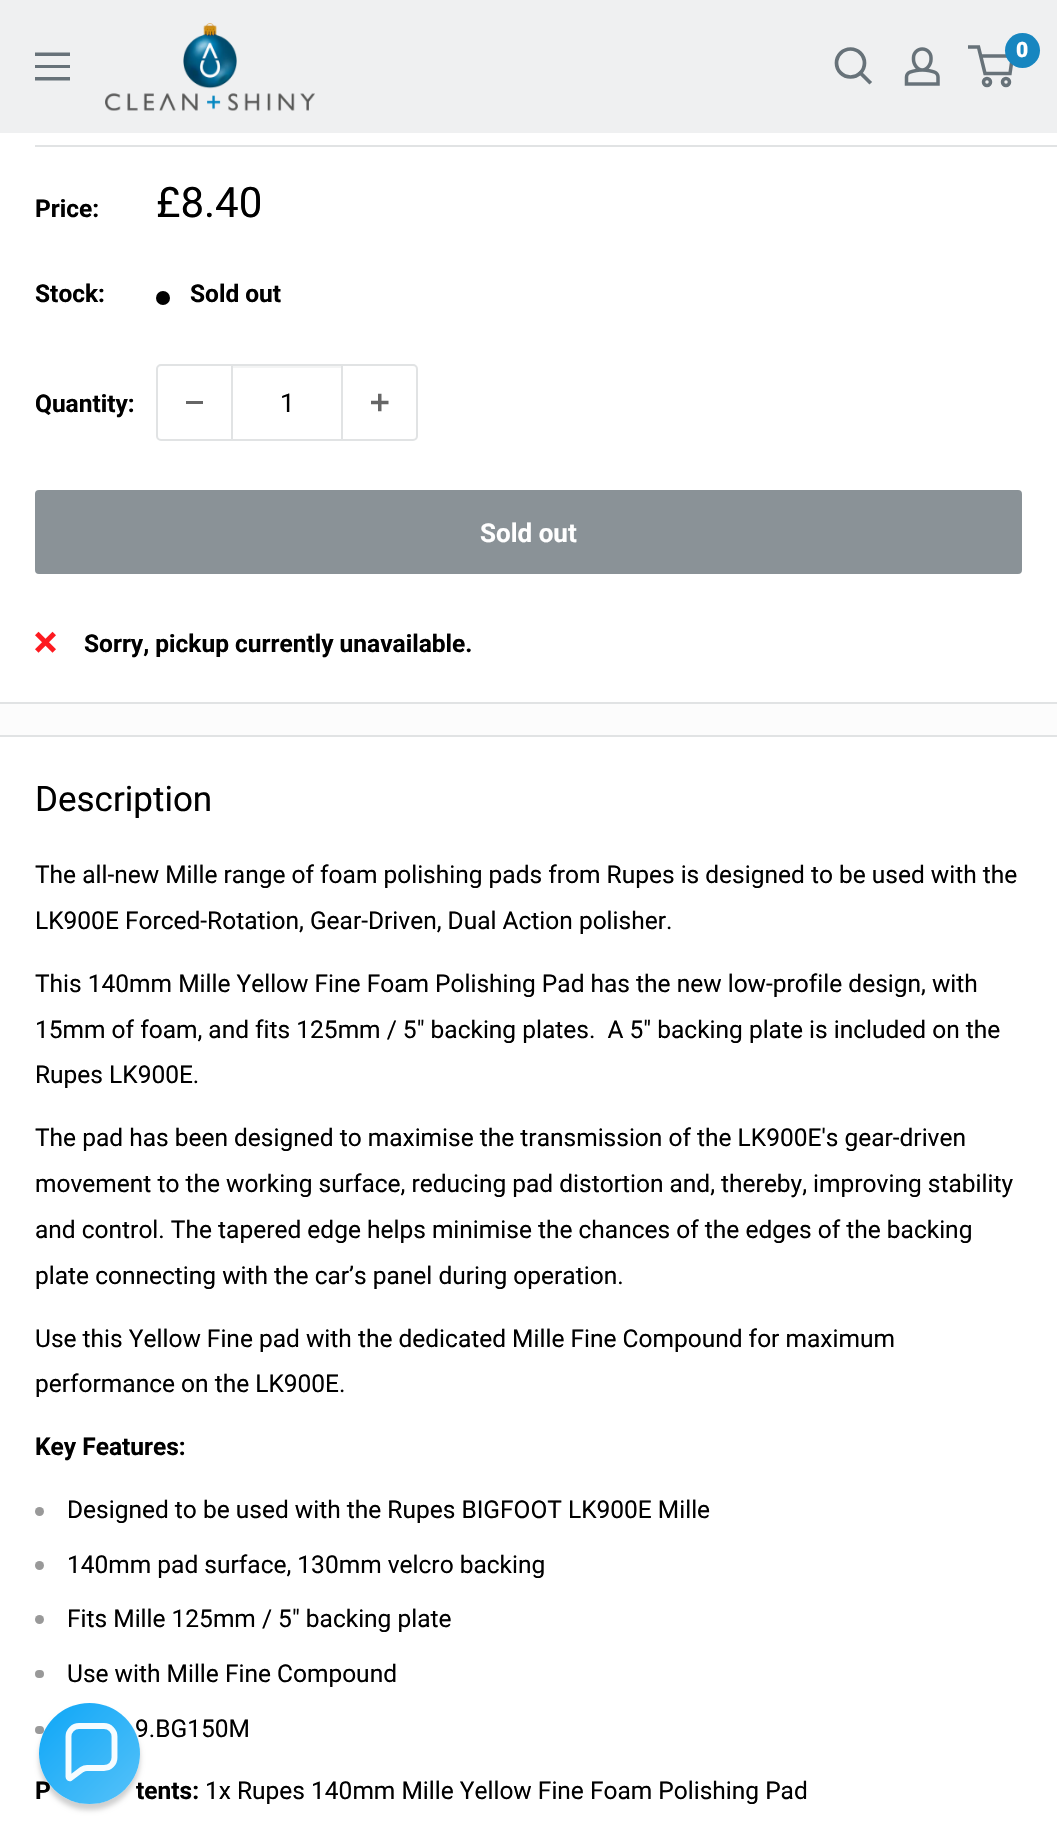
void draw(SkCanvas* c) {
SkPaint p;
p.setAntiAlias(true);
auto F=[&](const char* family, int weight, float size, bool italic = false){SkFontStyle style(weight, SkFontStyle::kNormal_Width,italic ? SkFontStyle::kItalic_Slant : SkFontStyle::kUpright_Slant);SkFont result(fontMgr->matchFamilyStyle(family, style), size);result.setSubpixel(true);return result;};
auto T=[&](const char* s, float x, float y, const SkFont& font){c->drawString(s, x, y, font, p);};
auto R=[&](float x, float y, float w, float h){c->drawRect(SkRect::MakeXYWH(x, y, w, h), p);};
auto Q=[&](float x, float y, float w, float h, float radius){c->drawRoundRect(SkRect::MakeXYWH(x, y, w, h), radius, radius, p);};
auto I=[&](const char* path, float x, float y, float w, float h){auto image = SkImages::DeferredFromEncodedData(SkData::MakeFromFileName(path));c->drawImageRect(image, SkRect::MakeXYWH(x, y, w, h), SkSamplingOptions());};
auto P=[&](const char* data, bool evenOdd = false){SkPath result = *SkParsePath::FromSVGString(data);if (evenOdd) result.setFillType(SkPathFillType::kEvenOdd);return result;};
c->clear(0xfffcfcfc);
p.setColor(0xffeff0f1);
R(0,0,1057,133);
I("1.png",105,23,210,88);
p.setStroke(true);
p.setStrokeWidth(3.7);
p.setStrokeCap(SkPaint::kSquare_Cap);
p.setColor(0xff677279);
c->drawPath(P("M869.5 82l-9-9"),p);
p.setStrokeCap(SkPaint::kButt_Cap);
c->drawCircle(850.5,63,14,p);
I("2.png",904,47,36,39);
p.setStrokeWidth(3.5);
c->drawCircle(987,82,3.5,p);
c->drawCircle(1006,82,3.5,p);
c->drawPath(P("M980.5 56h32l-2.5 17.5h-25l-6.5-26.5h-10.5"),p);
p.setStroke(false);
p.setColor(0xff1786c0);
c->drawCircle(1022.5,50.5,17.5,p);
auto f1 = F("Roboto",900,21);
p.setColor(0xffffffff);
T("0",1016,57,f1);
p.setColor(0xff677279);
c->drawPath(P("M35 77h35v3.5h-35zm0-24.5h35v3.5h-35zm0 12.5h35v3h-35z",true),p);
p.setColor(0xffffffff);
R(0,133,1057,569);
p.setColor(0xffe1e3e4);
R(0,702,1057,2);
R(35,145,1022,2);
auto f2 = F("Roboto",700,24.5);
p.setColor(0xff000000);
T("Price:",35,217,f2);
auto f3 = F("Roboto",400,42);
T("£8.40",156,217,f3);
T("Stock:",35,302,f2);
c->drawCircle(163,298,7,p);
T("Sold out",190,302,f2);
T("Quantity:",35,412,f2);
p.setStroke(true);
p.setStrokeWidth(2);
p.setColor(0xffe1e3e4);
c->drawRoundRect(SkRect::MakeXYWH(157,365,260,75),4,4,p);
p.setStroke(false);
p.setColor(0xff666666);
R(186,401,17,3);
p.setColor(0xfff3f4f4);
R(233,366,108,2);
p.setColor(0xffe1e3e4);
R(341,366,2,73);
R(231,366,2,73);
auto f4 = F("Roboto",400,26);
p.setColor(0xff000000);
T("1",280,412,f4);
I("3.png",371,393,18,19);
p.setColor(0xff8a9297);
c->drawRoundRect(SkRect::MakeXYWH(36,491,985,82),3,3,p);
p.setStroke(true);
c->drawRoundRect(SkRect::MakeXYWH(36,491,985,82),3,3,p);
auto f5 = F("Roboto",700,26);
p.setStroke(false);
p.setColor(0xffffffff);
T("Sold out",480,542,f5);
I("4.png",35,631,21,22);
p.setColor(0xff000000);
T("Sorry, pickup currently unavailable.",84,652,f2);
p.setColor(0xffffffff);
R(0,737,1057,1105);
p.setColor(0xffe1e3e4);
R(0,735,1057,2);
auto f6 = F("Roboto",400,35);
p.setColor(0xff000000);
T("Description",35,811,f6);
auto f7 = F("Roboto",400,24.5);
T("The all-new Mille range of foam polishing pads from Rupes is designed to be used with the",35,883,f7);
T("LK900E Forced-Rotation, Gear-Driven, Dual Action polisher.",35,929,f7);
T("This 140mm Mille Yellow Fine Foam Polishing Pad has the new low-profile design, with",35,992,f7);
T("15mm of foam, and fits 125mm / 5\" backing plates.  A 5\" backing plate is included on the",35,1038,f7);
T("Rupes LK900E.",35,1083,f7);
T("The pad has been designed to maximise the transmission of the LK900E's gear-driven",35,1146,f7);
T("movement to the working surface, reducing pad distortion and, thereby, improving stability",35,1192,f7);
T("and control. The tapered edge helps minimise the chances of the edges of the backing",35,1238,f7);
T("plate connecting with the car’s panel during operation.",35,1284,f7);
T("Use this Yellow Fine pad with the dedicated Mille Fine Compound for maximum",35,1347,f7);
T("performance on the LK900E.",35,1392,f7);
T("Key Features:",35,1455,f2);
p.setColor(0xff999999);
c->drawCircle(39.5,1511.5,4.5,p);
p.setColor(0xff000000);
T("Designed to be used with the Rupes BIGFOOT LK900E Mille",67,1518,f7);
p.setColor(0xff999999);
c->drawCircle(39.5,1565.5,4.5,p);
p.setColor(0xff000000);
T("140mm pad surface, 130mm velcro backing",67,1573,f7);
p.setColor(0xff999999);
c->drawCircle(39.5,1619.5,4.5,p);
p.setColor(0xff000000);
T("Fits Mille 125mm / 5\" backing plate",67,1627,f7);
p.setColor(0xff999999);
Q(35,1670,9,8,4);
p.setColor(0xff000000);
T("Use with Mille Fine Compound",67,1682,f7);
p.setColor(0xff999999);
Q(35,1726,9,8,4);
p.setColor(0xff000000);
T("9.BG150M",135,1737,f7);
T("P",35,1799,f2);
T("tents:",136,1799,f2);
T("1x Rupes 140mm Mille Yellow Fine Foam Polishing Pad",205,1799,f7);
c->save();
c->clipPath(P("M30 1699h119v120h-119zm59.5 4c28 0 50.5 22.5 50.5 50.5c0 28-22.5 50.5-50.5 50.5c-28 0-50.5-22.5-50.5-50.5c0-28 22.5-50.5 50.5-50.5z",true),true);
p.setColor(0x30000000);
p.setMaskFilter(SkMaskFilter::MakeBlur(kNormal_SkBlurStyle, 2.5));
c->drawRoundRect(SkRect::MakeXYWH(39,1708,101,102),50.5,50.5,p);
p.setMaskFilter(nullptr);
c->restore();
{
const SkColor colors[] = {0xf200a2f7,0xf24dbef9};
const float stops[] = {0,1};
const SkPoint ends[] = {{38,1703}, {140,1804}};
p.setShader(SkGradientShader::MakeLinear(ends, colors, stops, 2, SkTileMode::kClamp));
p.setAlpha(255);
}
c->drawCircle(89.5,1753.5,50.5,p);
p.setStroke(true);
p.setStrokeWidth(5.9);
p.setShader(nullptr);
p.setColor(0xf2ffffff);
c->drawPath(P("M104 1726h-25c-6 0-10.5 5-10.5 10.5v40.5c0 1 1 1.5 2 1l11.5-8.5c1.5-1 3-1.5 5-1.5h17c6 0 10.5-4.5 10.5-10.5v-21c0-5.5-4.5-10.5-10.5-10.5z"),p);
}
